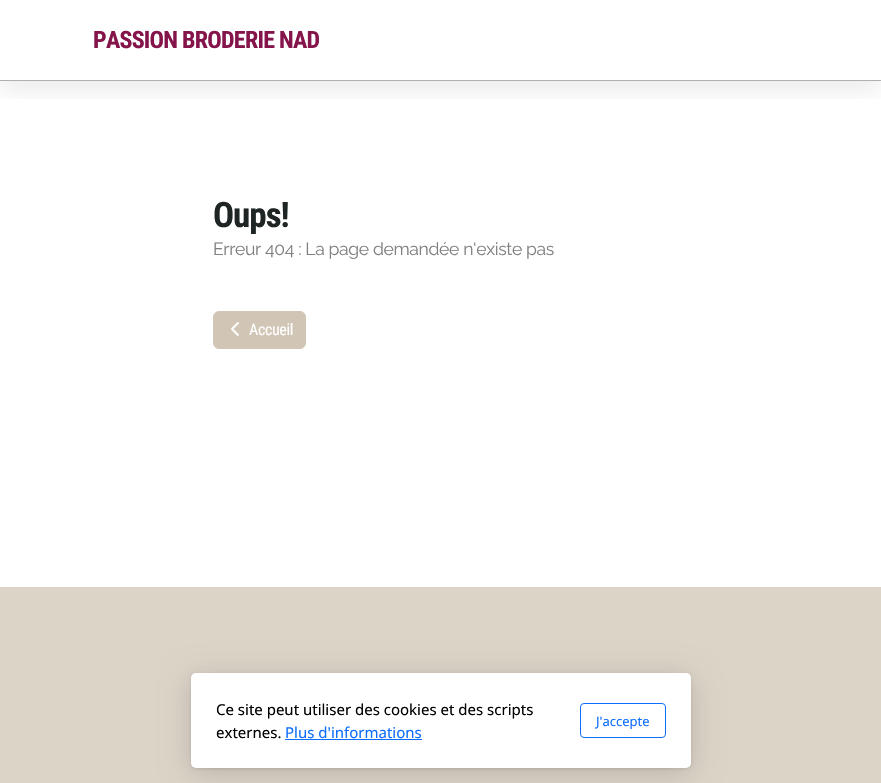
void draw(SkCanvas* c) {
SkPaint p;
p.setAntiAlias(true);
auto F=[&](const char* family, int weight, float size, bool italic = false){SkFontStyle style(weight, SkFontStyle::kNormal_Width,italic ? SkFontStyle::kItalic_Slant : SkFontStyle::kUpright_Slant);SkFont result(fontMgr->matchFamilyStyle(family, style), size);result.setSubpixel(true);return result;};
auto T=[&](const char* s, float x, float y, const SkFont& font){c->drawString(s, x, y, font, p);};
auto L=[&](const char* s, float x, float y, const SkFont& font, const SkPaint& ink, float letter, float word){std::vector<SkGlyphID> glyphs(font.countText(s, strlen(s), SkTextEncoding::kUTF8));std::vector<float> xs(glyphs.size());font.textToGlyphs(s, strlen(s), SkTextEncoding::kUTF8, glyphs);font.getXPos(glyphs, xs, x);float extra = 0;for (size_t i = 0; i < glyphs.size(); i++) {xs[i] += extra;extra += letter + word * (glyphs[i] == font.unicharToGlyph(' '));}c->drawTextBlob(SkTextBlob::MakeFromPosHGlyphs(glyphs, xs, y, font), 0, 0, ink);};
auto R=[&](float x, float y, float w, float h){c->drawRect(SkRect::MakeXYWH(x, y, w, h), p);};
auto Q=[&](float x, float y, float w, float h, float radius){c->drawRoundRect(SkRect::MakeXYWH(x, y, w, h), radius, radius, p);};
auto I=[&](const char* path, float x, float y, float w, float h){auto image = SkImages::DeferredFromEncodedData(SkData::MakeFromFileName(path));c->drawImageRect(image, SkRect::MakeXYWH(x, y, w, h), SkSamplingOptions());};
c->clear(0xffffffff);
c->save();
c->clipRect(SkRect::MakeXYWH(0,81,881,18));
p.setColor(0x17000000);
p.setMaskFilter(SkMaskFilter::MakeBlur(kNormal_SkBlurStyle, 14.5));
c->drawRect(SkRect::MakeXYWH(0,7,881,81),p);
p.setMaskFilter(nullptr);
c->restore();
p.setColor(0xffb0b0b0);
R(0,80,881,1);
auto f1 = F("Roboto Condensed",700,24);
p.setColor(0xff85144b);
L("PASSION BRODERIE NAD",93,48,f1,p,-.75,0);
auto f2 = F("Roboto Condensed",700,35);
p.setColor(0xff1e2524);
L("Oups!",213,227,f2,p,-1,0);
auto f3 = F("Raleway",100,17.6);
p.setColor(0xff808080);
L("Erreur 404 : La page demandée n'existe pas",213,255,f3,p,-.35,0);
p.setColor(0xffd1c6b6);
c->drawRoundRect(SkRect::MakeXYWH(213.5,311.5,92,37),5.5,5.5,p);
p.setStroke(true);
p.setStrokeWidth(1);
c->drawRoundRect(SkRect::MakeXYWH(213.5,311.5,92,37),5.5,5.5,p);
I("1.png",231,322,8,14);
auto f4 = F("Roboto Condensed",400,16);
p.setStroke(false);
p.setColor(0xffffffff);
L("Accueil",249,335,f4,p,-.35,0);
p.setColor(0xffddd4c8);
R(0,587,881,196);
p.setColor(0x29000000);
p.setMaskFilter(SkMaskFilter::MakeBlur(kNormal_SkBlurStyle, 15));
c->drawRoundRect(SkRect::MakeXYWH(191,678,500,95),5,5,p);
p.setMaskFilter(nullptr);
p.setColor(0x1a000000);
p.setMaskFilter(SkMaskFilter::MakeBlur(kNormal_SkBlurStyle, 1.5));
c->drawRoundRect(SkRect::MakeXYWH(191,674,500,95),5,5,p);
p.setMaskFilter(nullptr);
p.setColor(0xffffffff);
Q(191,673,500,95,5);
auto f5 = F("Noto Sans",400,15);
p.setColor(0xff000000);
T("Ce site peut utiliser des cookies et des scripts",216,715,f5);
T("externes.",216,738,f5);
p.setColor(0xff0d6efd);
T("Plus d'informations",285,738,f5);
R(285,739,137,1);
p.setStroke(true);
c->drawRoundRect(SkRect::MakeXYWH(580.5,703.5,85,34),3.5,3.5,p);
auto f6 = F("Noto Sans",400,13);
p.setStroke(false);
T("J'accepte",596,726,f6);
}
